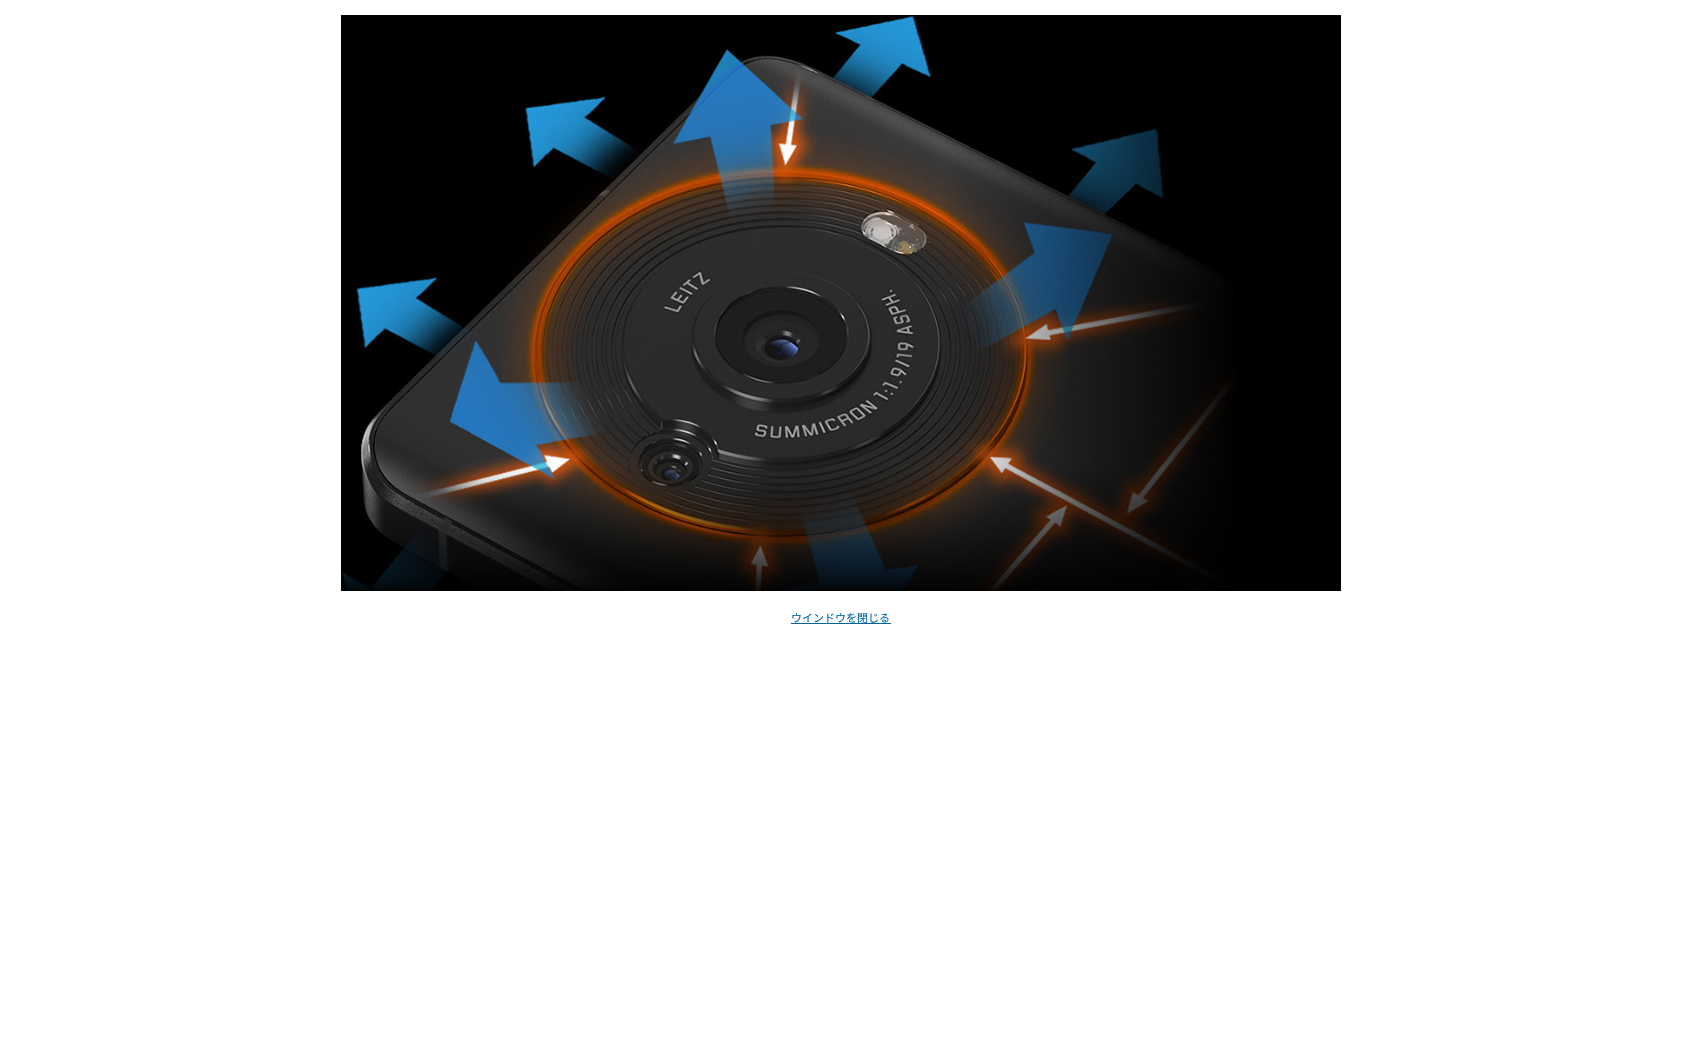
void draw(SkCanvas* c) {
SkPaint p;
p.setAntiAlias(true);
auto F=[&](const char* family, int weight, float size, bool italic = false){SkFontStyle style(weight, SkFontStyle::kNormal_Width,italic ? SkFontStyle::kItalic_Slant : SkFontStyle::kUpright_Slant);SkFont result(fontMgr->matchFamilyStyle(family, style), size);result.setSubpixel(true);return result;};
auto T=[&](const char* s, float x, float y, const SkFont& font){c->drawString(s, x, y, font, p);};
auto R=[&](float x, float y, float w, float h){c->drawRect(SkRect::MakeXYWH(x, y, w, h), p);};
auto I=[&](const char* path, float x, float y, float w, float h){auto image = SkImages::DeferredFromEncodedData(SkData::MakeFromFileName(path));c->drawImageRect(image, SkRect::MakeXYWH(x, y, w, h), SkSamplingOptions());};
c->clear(0xffffffff);
I("1.png",341,15,1000,576);
auto f1 = F("Noto Sans JP",400,11);
p.setColor(0xff0064a2);
T("ウインドウを閉じる",791,622,f1);
R(791,623,100,1);
}
